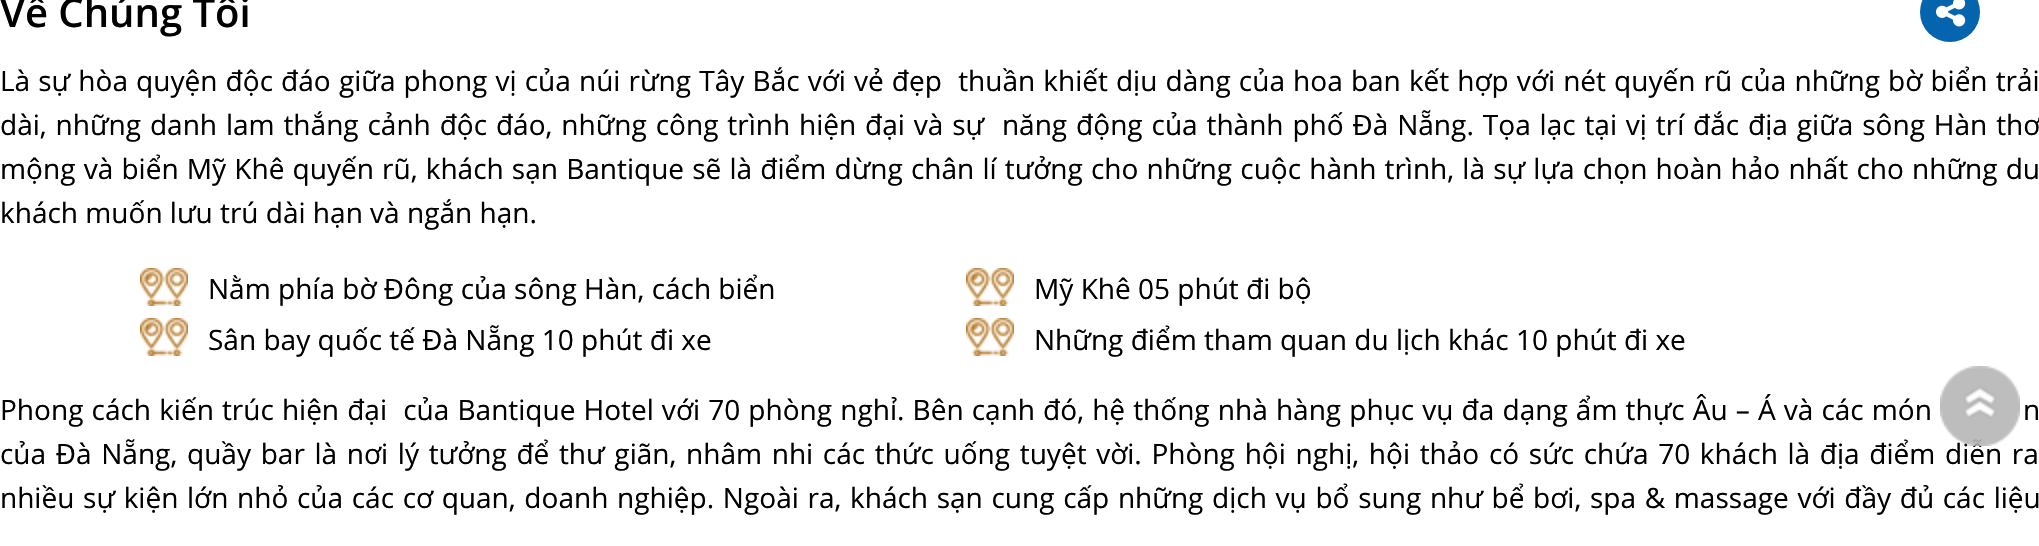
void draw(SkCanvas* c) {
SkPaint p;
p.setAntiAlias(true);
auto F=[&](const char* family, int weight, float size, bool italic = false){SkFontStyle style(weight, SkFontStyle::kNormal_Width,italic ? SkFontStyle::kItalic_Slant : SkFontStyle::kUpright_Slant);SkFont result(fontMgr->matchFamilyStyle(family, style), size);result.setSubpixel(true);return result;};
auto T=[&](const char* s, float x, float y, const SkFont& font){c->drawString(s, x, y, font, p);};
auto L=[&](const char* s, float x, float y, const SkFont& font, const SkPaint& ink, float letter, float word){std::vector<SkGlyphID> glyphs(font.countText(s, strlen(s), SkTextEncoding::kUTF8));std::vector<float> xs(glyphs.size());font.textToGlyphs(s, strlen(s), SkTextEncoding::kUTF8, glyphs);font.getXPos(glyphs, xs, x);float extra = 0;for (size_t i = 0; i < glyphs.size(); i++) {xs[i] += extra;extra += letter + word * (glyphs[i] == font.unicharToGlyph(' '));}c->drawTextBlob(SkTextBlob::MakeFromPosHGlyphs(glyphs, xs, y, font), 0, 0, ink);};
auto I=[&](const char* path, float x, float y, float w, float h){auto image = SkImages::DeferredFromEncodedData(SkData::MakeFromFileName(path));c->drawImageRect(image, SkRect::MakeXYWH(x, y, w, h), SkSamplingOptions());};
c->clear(0xffffffff);
auto f1 = F("Open Sans",600,40);
p.setColor(0xff000000);
T("Về Chúng Tôi",0,27,f1);
p.setColor(0xff0564ae);
c->drawCircle(1950,12,30,p);
I("1.png",1936,0,30,27);
auto f2 = F("Open Sans",400,28);
p.setColor(0xff000000);
L("Là sự hòa quyện độc đáo giữa phong vị của núi rừng Tây Bắc với vẻ đẹp  thuần khiết dịu dàng của hoa ban kết hợp với nét quyến rũ của những bờ biển trải",0,91,f2,p,0,.85);
L("dài, những danh lam thắng cảnh độc đáo, những công trình hiện đại và sự  năng động của thành phố Đà Nẵng. Tọa lạc tại vị trí đắc địa giữa sông Hàn thơ",0,135,f2,p,0,1.6);
L("mộng và biển Mỹ Khê quyến rũ, khách sạn Bantique sẽ là điểm dừng chân lí tưởng cho những cuộc hành trình, là sự lựa chọn hoàn hảo nhất cho những du",0,179,f2,p,0,.9);
T("khách muốn lưu trú dài hạn và ngắn hạn.",0,223,f2);
I("2.png",140,268,48,38);
T("Nằm phía bờ Đông của sông Hàn, cách biển",208,299,f2);
I("2.png",966,268,48,38);
T("Mỹ Khê 05 phút đi bộ",1034,299,f2);
I("2.png",140,318,48,38);
T("Sân bay quốc tế Đà Nẵng 10 phút đi xe",208,350,f2);
I("2.png",966,318,48,38);
T("Những điểm tham quan du lịch khác 10 phút đi xe",1034,350,f2);
L("Phong cách kiến trúc hiện đại  của Bantique Hotel với 70 phòng nghỉ. Bên cạnh đó, hệ thống nhà hàng phục vụ đa dạng ẩm thực Âu – Á và các món",0,420,f2,p,0,.85);
L("n",2023,420,f2,p,0,.85);
L("của Đà Nẵng, quầy bar là nơi lý tưởng để thư giãn, nhâm nhi các thức uống tuyệt vời. Phòng hội nghị, hội thảo có sức chứa 70 khách là địa điểm diễn ra",0,464,f2,p,0,2.4);
L("nhiều sự kiện lớn nhỏ của các cơ quan, doanh nghiệp. Ngoài ra, khách sạn cung cấp những dịch vụ bổ sung như bể bơi, spa & massage với đầy đủ các liệu",0,508,f2,p,0,1.4);
I("3.png",1940,366,80,80);
}
